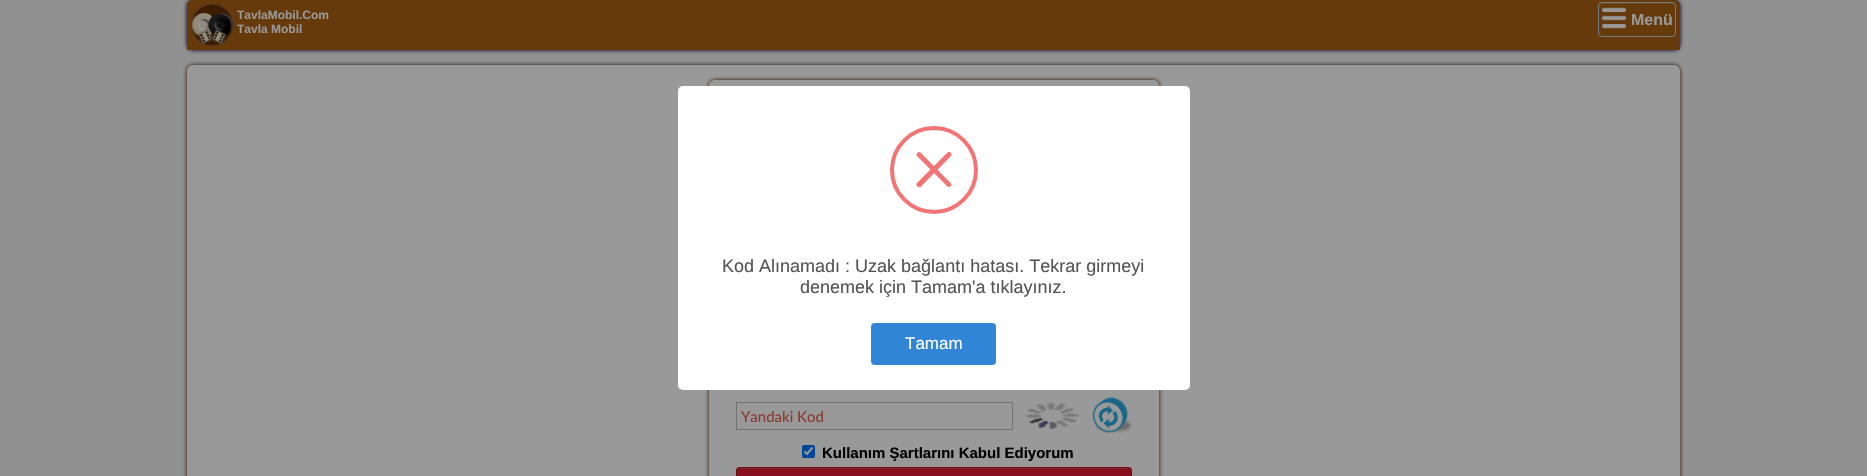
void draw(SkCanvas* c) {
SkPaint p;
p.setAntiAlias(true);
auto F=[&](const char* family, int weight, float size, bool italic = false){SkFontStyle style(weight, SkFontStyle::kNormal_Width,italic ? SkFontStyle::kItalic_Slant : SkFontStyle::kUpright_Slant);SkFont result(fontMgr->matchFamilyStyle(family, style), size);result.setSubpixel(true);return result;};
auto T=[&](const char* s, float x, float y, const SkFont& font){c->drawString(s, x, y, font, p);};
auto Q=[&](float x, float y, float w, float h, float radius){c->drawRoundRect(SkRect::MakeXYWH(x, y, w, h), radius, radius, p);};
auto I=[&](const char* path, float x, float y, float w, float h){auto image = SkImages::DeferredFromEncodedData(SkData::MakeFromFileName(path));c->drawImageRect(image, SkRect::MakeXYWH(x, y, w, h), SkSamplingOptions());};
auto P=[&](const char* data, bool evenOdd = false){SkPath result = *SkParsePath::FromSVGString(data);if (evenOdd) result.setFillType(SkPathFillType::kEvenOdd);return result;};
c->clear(0xff919191);
p.setColor(0xff030a29);
p.setMaskFilter(SkMaskFilter::MakeBlur(kNormal_SkBlurStyle, 2.5));
c->drawRoundRect(SkRect::MakeXYWH(188,1,1491,48),5,5,p);
p.setMaskFilter(nullptr);
p.setMaskFilter(SkMaskFilter::MakeBlur(kNormal_SkBlurStyle, 2.5));
c->drawRoundRect(SkRect::MakeXYWH(188,1,1491,48),5,5,p);
p.setMaskFilter(nullptr);
p.setColor(0xff673a0c);
c->drawPath(P("M193 0h1481c3.5 0 6 2.5 6 6v44h-1493v-44c0-3.5 2.5-6 6-6z"),p);
I("1.png",191,4,42,42);
auto f1 = F("Liberation Sans",700,12);
p.setColor(0xff999999);
T("TavlaMobil.Com",237,19,f1);
T("Tavla Mobil",237,33,f1);
p.setColor(0xff6e4821);
c->drawPath(P("M1602 4h70c2 0 3 1 3 3c0-7-11-4-15-4h-46c-4 0-15-3-15 4c0-2 1-3 3-3z"),p);
p.setStroke(true);
p.setStrokeWidth(1);
p.setColor(0xff747d83);
c->drawRoundRect(SkRect::MakeXYWH(1598.5,2.5,77,34),3.5,3.5,p);
I("2.png",1602,7,24,22);
auto f2 = F("Liberation Sans",700,16);
p.setStroke(false);
p.setColor(0xff999999);
T("Menü",1631,25,f2);
p.setColor(0xff3c1a03);
p.setMaskFilter(SkMaskFilter::MakeBlur(kNormal_SkBlurStyle, 2.5));
c->drawRoundRect(SkRect::MakeXYWH(188,66,1491,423),5,5,p);
p.setMaskFilter(nullptr);
p.setMaskFilter(SkMaskFilter::MakeBlur(kNormal_SkBlurStyle, 2.5));
c->drawRoundRect(SkRect::MakeXYWH(188,66,1491,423),5,5,p);
p.setMaskFilter(nullptr);
p.setColor(0xff999999);
Q(187,65,1493,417,6);
c->save();
c->clipPath(P("M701 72h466v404h-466zm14 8h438c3.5 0 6 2.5 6 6v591c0 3.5-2.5 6-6 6h-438c-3.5 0-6-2.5-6-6v-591c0-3.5 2.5-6 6-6z",true),true);
p.setColor(0xff3c1a03);
p.setMaskFilter(SkMaskFilter::MakeBlur(kNormal_SkBlurStyle, 2.5));
c->drawRoundRect(SkRect::MakeXYWH(710,81,448,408),5,5,p);
p.setMaskFilter(nullptr);
p.setMaskFilter(SkMaskFilter::MakeBlur(kNormal_SkBlurStyle, 2.5));
c->drawRoundRect(SkRect::MakeXYWH(710,81,448,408),5,5,p);
p.setMaskFilter(nullptr);
c->restore();
p.setStroke(true);
p.setStrokeWidth(7);
p.setColor(0x4f999999);
c->drawRoundRect(SkRect::MakeXYWH(712.5,83.5,443,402),2.5,2.5,p);
p.setStrokeWidth(1);
p.setColor(0xff737373);
c->drawRect(SkRect::MakeXYWH(736.5,402.5,276,27),p);
auto f3 = F("Lato",400,15);
p.setStroke(false);
p.setColor(0xff873a30);
T("Yandaki Kod",741,422,f3);
I("3.png",1025,402,54,27);
I("4.png",1092,396,40,37);
p.setColor(0xff004699);
Q(802,445,13,13,2);
p.setStroke(true);
p.setStrokeWidth(2.1);
p.setColor(0xff999999);
c->drawPath(P("M804.5 451.5l2.5 2.5l5.5-6.5"),p);
auto f4 = F("Liberation Sans",700,15);
p.setStroke(false);
p.setColor(0xff000000);
T("Kullanım Şartlarını Kabul Ediyorum",822,458,f4);
p.setColor(0xff86111c);
Q(736,467,396,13,4);
p.setColor(0xff89252e);
c->drawPath(P("M740 469h388c2 0 3 1 3 3c0-2-1-4-3-4h-388l-2 1l-1 3c0-2 1-3 3-3z"),p);
p.setStroke(true);
p.setStrokeWidth(1);
p.setColor(0xff670d14);
c->drawRoundRect(SkRect::MakeXYWH(736.5,467.5,395,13),3.5,3.5,p);
p.setStroke(false);
p.setColor(0xffffffff);
Q(678,86,512,304,5);
p.setStroke(true);
p.setStrokeWidth(4);
p.setColor(0xfff27474);
c->drawCircle(934,170,42,p);
p.setStroke(false);
c->drawPath(P("M920.5 152.5l30.5 31c1.5 1.5-1 4-3 3.5l-31-31l-.5-1.5c.5-2 2.5-3.5 4-2z"),p);
c->drawPath(P("M917 183l30.5-30.5c2-1.5 4.5 1 4 3l-31 31.5h-1.5c-2 0-3.5-2.5-2-4z"),p);
auto f5 = F("Liberation Sans",400,18);
p.setColor(0xff545454);
T("Kod Alınamadı : Uzak bağlantı hatası. Tekrar girmeyi",722,272,f5);
T("denemek için Tamam'a tıklayınız.",800,293,f5);
p.setColor(0xff3085d6);
Q(871,323,125,42,4);
auto f6 = F("Liberation Sans",400,17);
p.setColor(0xffffffff);
T("Tamam",905,349,f6);
}
